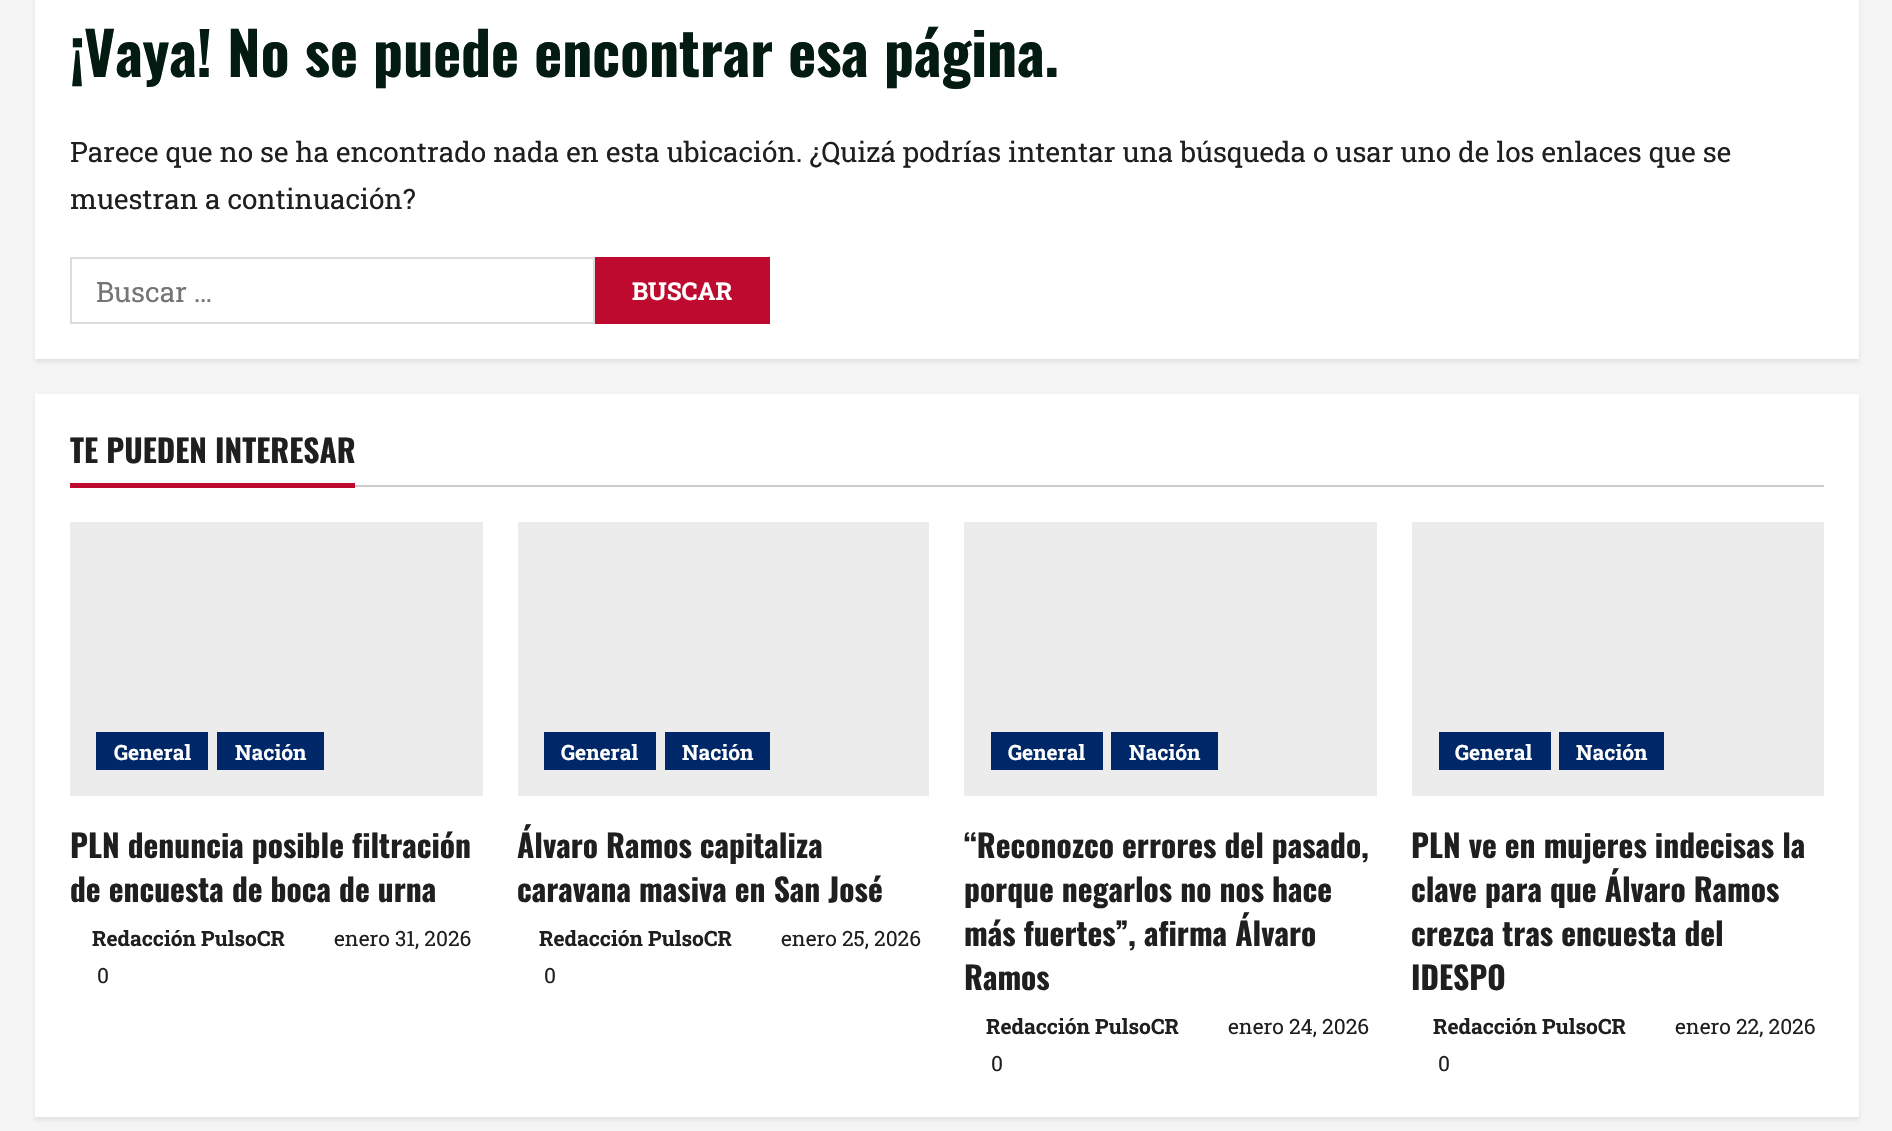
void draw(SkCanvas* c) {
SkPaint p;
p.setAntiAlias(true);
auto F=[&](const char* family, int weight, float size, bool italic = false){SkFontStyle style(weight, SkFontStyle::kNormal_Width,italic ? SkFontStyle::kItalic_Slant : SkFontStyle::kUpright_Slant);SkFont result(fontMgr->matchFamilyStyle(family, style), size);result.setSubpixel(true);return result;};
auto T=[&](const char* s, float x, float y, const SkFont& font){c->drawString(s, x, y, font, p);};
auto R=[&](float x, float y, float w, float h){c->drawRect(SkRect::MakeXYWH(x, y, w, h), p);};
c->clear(0xfff5f5f5);
p.setColor(0x14000000);
p.setMaskFilter(SkMaskFilter::MakeBlur(kNormal_SkBlurStyle, 2));
c->drawRect(SkRect::MakeXYWH(35,-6,1824,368),p);
p.setMaskFilter(nullptr);
p.setColor(0xffffffff);
R(35,0,1824,359);
auto f1 = F("Oswald",700,59.5);
p.setColor(0xff031b11);
T("¡Vaya! No se puede encontrar esa página.",70,77,f1);
auto f2 = F("Roboto Slab",400,28);
p.setColor(0xff1f1f1f);
T("Parece que no se ha encontrado nada en esta ubicación. ¿Quizá podrías intentar una búsqueda o usar uno de los enlaces que se",70,162,f2);
T("muestran a continuación?",70,209,f2);
p.setStroke(true);
p.setStrokeWidth(2);
p.setColor(0xffdcdcdc);
c->drawRect(SkRect::MakeXYWH(71,258,523,65),p);
p.setStroke(false);
p.setColor(0xff757575);
T("Buscar …",96,302,f2);
p.setColor(0xffbf0a30);
R(595,257,175,67);
auto f3 = F("Roboto Slab",700,24.5);
p.setColor(0xffffffff);
T("BUSCAR",632,300,f3);
p.setColor(0x14000000);
p.setMaskFilter(SkMaskFilter::MakeBlur(kNormal_SkBlurStyle, 2));
c->drawRect(SkRect::MakeXYWH(35,397,1824,723),p);
p.setMaskFilter(nullptr);
p.setColor(0xffffffff);
R(35,394,1824,723);
p.setColor(0xffcccccc);
R(355,485,1469,2);
auto f4 = F("Oswald",700,31.5);
p.setColor(0xff1f1f1f);
T("TE PUEDEN INTERESAR",70,463,f4);
p.setColor(0xffbf0a30);
R(70,483,285,5);
p.setColor(0xffececec);
R(70,522,413,274);
p.setColor(0xff002868);
R(96,732,112,38);
auto f5 = F("Roboto Slab",700,21);
p.setColor(0xffffffff);
T("General",114,760,f5);
p.setColor(0xff002868);
R(217,732,107,38);
p.setColor(0xffffffff);
T("Nación",235,760,f5);
p.setColor(0xff1f1f1f);
T("PLN denuncia posible filtración",70,858,f4);
T("de encuesta de boca de urna",70,902,f4);
T("Redacción PulsoCR",92,946,f5);
auto f6 = F("Roboto Slab",400,21);
T("enero 31, 2026",334,946,f6);
T("0",97,983,f6);
p.setColor(0xffececec);
R(518,522,411,274);
p.setColor(0xff002868);
R(544,732,112,38);
p.setColor(0xffffffff);
T("General",561,760,f5);
p.setColor(0xff002868);
R(665,732,105,38);
p.setColor(0xffffffff);
T("Nación",682,760,f5);
p.setColor(0xff1f1f1f);
T("Álvaro Ramos capitaliza",517,858,f4);
T("caravana masiva en San José",517,902,f4);
T("Redacción PulsoCR",539,946,f5);
T("enero 25, 2026",781,946,f6);
T("0",544,983,f6);
p.setColor(0xffececec);
R(964,522,413,274);
p.setColor(0xff002868);
R(991,732,112,38);
p.setColor(0xffffffff);
T("General",1008,760,f5);
p.setColor(0xff002868);
R(1111,732,107,38);
p.setColor(0xffffffff);
T("Nación",1129,760,f5);
p.setColor(0xff1f1f1f);
T("“Reconozco errores del pasado,",964,858,f4);
T("porque negarlos no nos hace",964,902,f4);
T("más fuertes”, afirma Álvaro",964,946,f4);
T("Ramos",964,990,f4);
T("Redacción PulsoCR",986,1034,f5);
T("enero 24, 2026",1228,1034,f6);
T("0",991,1071,f6);
p.setColor(0xffececec);
R(1412,522,412,274);
p.setColor(0xff002868);
R(1439,732,112,38);
p.setColor(0xffffffff);
T("General",1455,760,f5);
p.setColor(0xff002868);
R(1559,732,105,38);
p.setColor(0xffffffff);
T("Nación",1576,760,f5);
p.setColor(0xff1f1f1f);
T("PLN ve en mujeres indecisas la",1411,858,f4);
T("clave para que Álvaro Ramos",1411,902,f4);
T("crezca tras encuesta del",1411,946,f4);
T("IDESPO",1411,990,f4);
T("Redacción PulsoCR",1433,1034,f5);
T("enero 22, 2026",1675,1034,f6);
T("0",1438,1071,f6);
}
